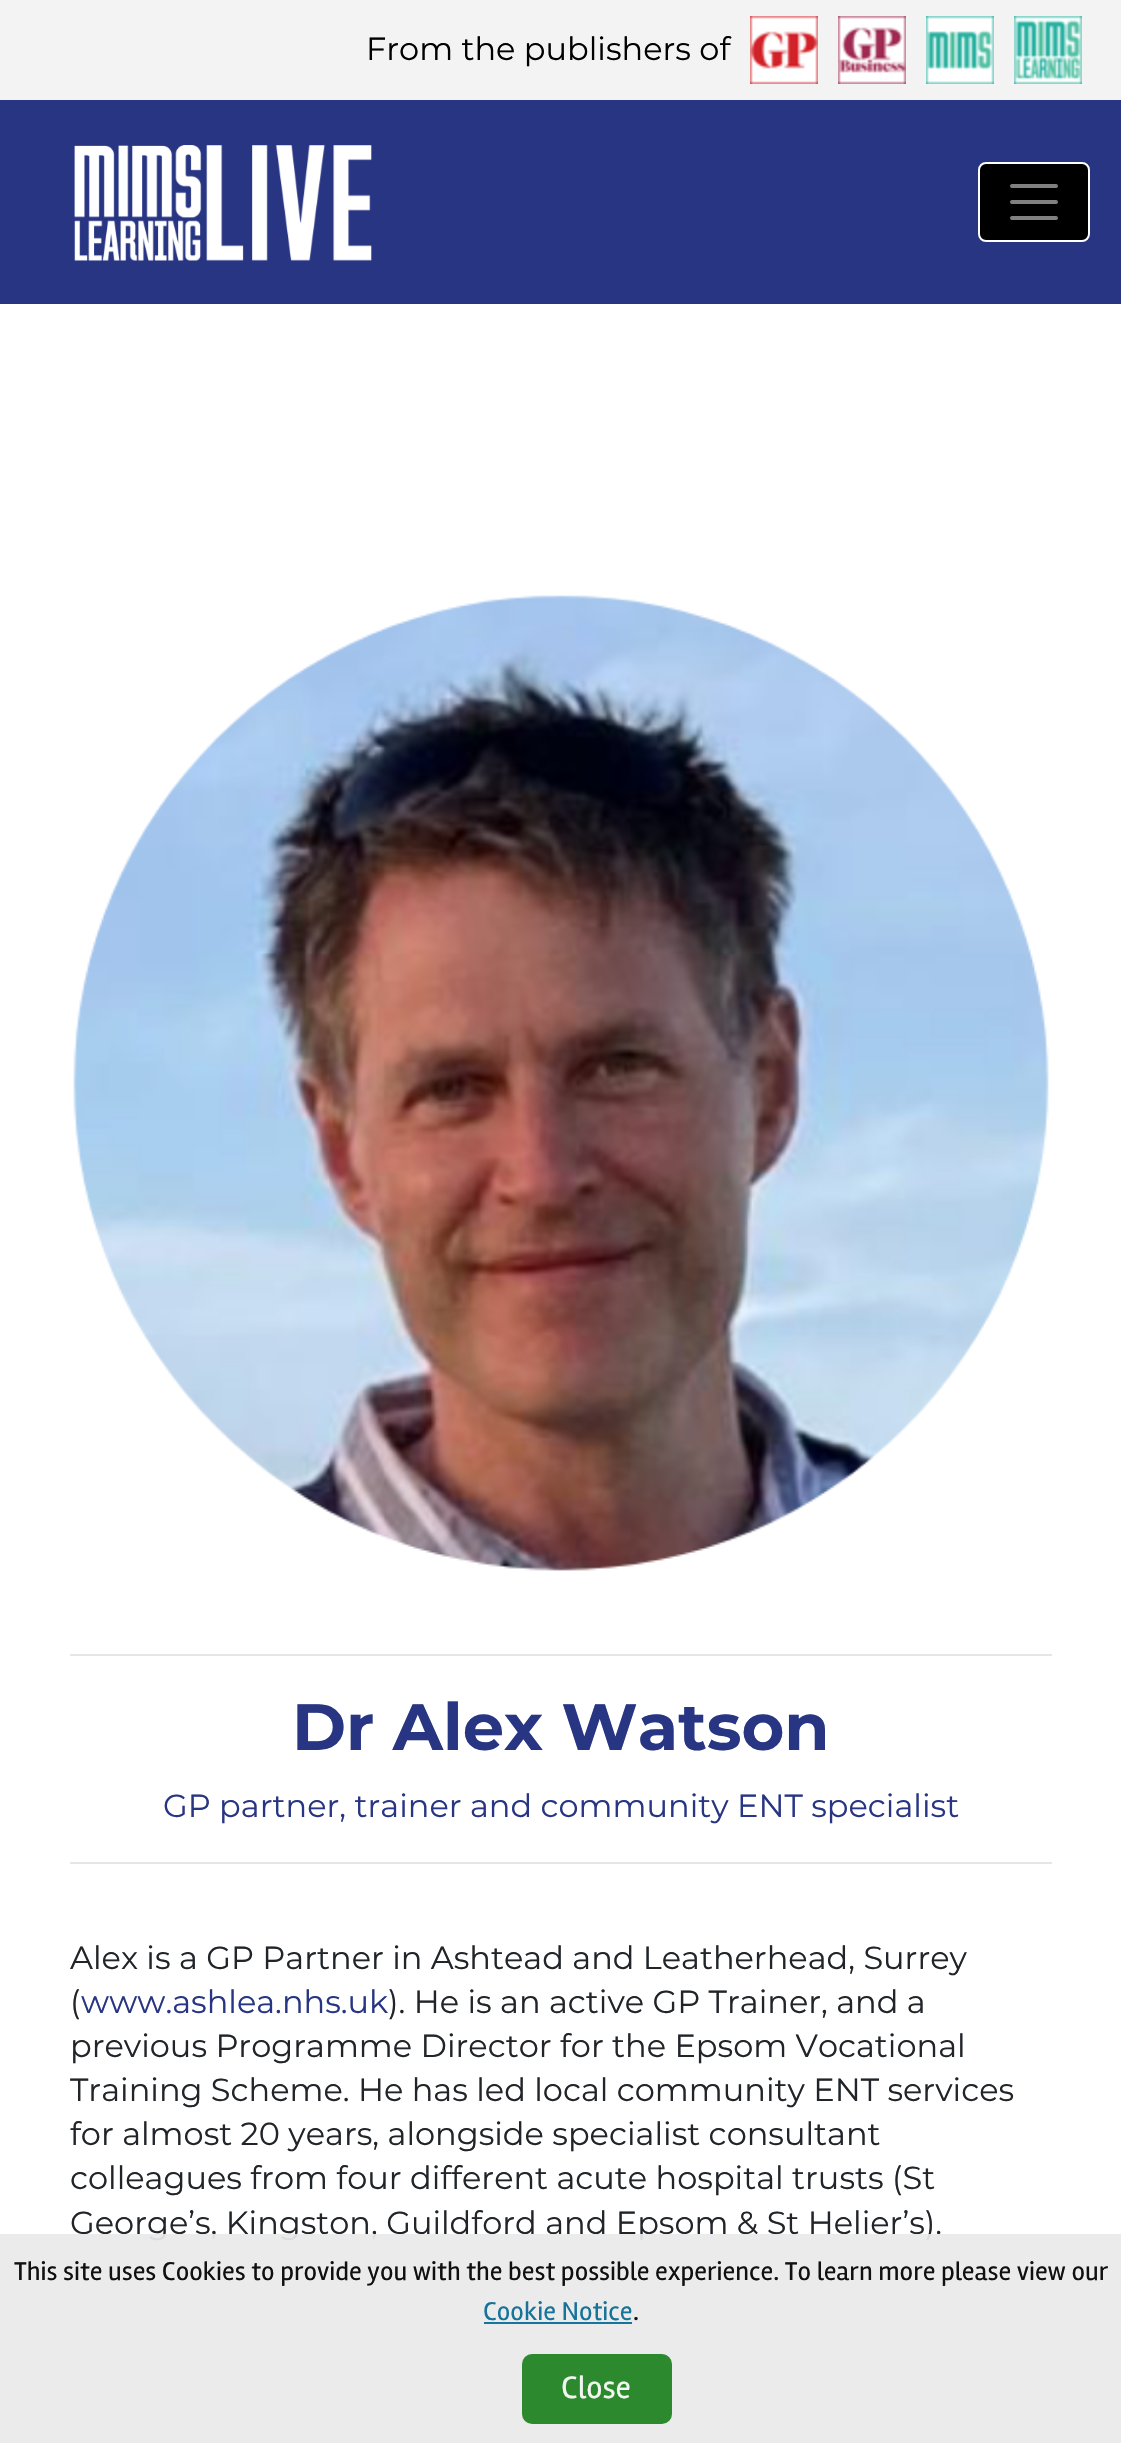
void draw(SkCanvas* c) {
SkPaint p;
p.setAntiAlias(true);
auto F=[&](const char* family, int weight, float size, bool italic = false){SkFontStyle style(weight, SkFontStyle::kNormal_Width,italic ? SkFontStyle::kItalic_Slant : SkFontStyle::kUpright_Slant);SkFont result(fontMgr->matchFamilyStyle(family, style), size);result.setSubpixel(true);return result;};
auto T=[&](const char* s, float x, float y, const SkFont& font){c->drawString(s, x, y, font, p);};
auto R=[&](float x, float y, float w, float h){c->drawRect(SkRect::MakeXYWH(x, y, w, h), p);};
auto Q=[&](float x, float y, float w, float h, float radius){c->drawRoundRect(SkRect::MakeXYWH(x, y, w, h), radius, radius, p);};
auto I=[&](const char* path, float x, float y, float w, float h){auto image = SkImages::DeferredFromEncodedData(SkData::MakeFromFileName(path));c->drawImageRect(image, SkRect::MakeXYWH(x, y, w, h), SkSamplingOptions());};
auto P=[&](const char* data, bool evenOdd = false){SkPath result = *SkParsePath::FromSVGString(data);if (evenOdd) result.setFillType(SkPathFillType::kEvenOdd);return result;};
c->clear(0xffffffff);
p.setColor(0xfff3f3f3);
R(0,0,1121,100);
auto f1 = F("Montserrat",400,32);
p.setColor(0xff000000);
T("From the publishers of",366,60,f1);
I("1.png",750,16,68,68);
I("2.png",838,16,68,68);
I("3.png",926,16,68,68);
I("4.png",1014,16,68,68);
p.setColor(0xff283583);
R(0,100,1121,204);
I("5.png",74,145,298,116);
p.setColor(0xff000000);
c->drawRoundRect(SkRect::MakeXYWH(979,163,110,78),7,7,p);
p.setStroke(true);
p.setStrokeWidth(2);
p.setColor(0xffffffff);
c->drawRoundRect(SkRect::MakeXYWH(979,163,110,78),7,7,p);
p.setStrokeWidth(4);
p.setStrokeCap(SkPaint::kRound_Cap);
p.setColor(0xff808080);
c->drawPath(P("M1012 186h44m-44 16h44m-44 16h44"),p);
I("6.png",73,595,976,976);
p.setStroke(false);
p.setColor(0xffe6e6e6);
R(70,1654,982,2);
auto f2 = F("Montserrat",700,65.5);
p.setColor(0xff283583);
T("Dr Alex Watson",292,1750,f2);
T("GP partner, trainer and community ENT specialist",163,1817,f1);
p.setColor(0xffe6e6e6);
R(70,1862,982,2);
p.setColor(0xff212529);
T("Alex is a GP Partner in Ashtead and Leatherhead, Surrey",70,1969,f1);
T("(",70,2013,f1);
p.setColor(0xff283583);
T("www.ashlea.nhs.uk",81,2013,f1);
p.setColor(0xff212529);
T("). He is an active GP Trainer, and a",388,2013,f1);
T("previous Programme Director for the Epsom Vocational",70,2057,f1);
T("Training Scheme. He has led local community ENT services",70,2101,f1);
T("for almost 20 years, alongside specialist consultant",70,2145,f1);
T("colleagues from four different acute hospital trusts (St",70,2189,f1);
T("George’s, Kingston, Guildford and Epsom & St Helier’s).",70,2234,f1);
p.setColor(0xedeaeaea);
R(0,2234,1121,209);
auto f3 = F("Rambla",400,26.6);
p.setColor(0xff101010);
T("This site uses Cookies to provide you with the best possible experience. To learn more please view our",14,2280,f3);
p.setColor(0xff167399);
T("Cookie Notice",483,2320,f3);
p.setColor(0xff17749b);
R(484,2322,148,2);
p.setColor(0xff101010);
T(".",633,2320,f3);
p.setColor(0xed1e811e);
Q(522,2354,150,70,10);
auto f4 = F("Rambla",400,32);
p.setColor(0xfff0f7f0);
T("Close",561,2398,f4);
}
